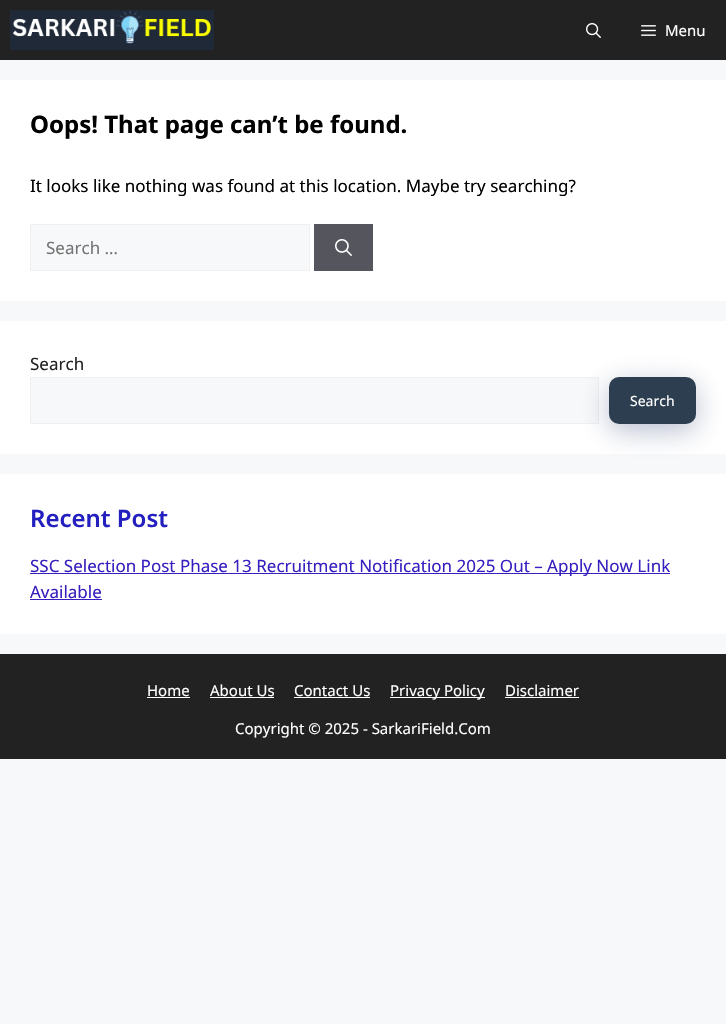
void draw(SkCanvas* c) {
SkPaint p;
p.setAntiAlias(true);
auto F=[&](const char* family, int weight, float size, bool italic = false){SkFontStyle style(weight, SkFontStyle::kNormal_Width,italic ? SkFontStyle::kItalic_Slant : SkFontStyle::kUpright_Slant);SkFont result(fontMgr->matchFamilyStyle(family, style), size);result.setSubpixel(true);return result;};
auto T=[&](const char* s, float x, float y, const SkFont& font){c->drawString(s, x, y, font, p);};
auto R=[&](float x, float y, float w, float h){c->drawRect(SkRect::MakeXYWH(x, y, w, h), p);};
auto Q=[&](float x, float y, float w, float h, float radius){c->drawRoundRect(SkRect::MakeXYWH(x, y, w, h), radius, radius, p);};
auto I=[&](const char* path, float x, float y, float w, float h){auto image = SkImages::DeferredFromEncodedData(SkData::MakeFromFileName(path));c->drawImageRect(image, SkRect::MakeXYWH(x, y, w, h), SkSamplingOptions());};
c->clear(0xfff7f8f9);
p.setColor(0xff222222);
R(0,0,726,60);
I("1.png",10,10,204,40);
I("2.png",586,23,15,15);
I("3.png",641,25,15,11);
auto f1 = F("Noto Sans",400,15);
p.setColor(0xffffffff);
T("Menu",665,36,f1);
R(0,80,726,221);
auto f2 = F("Noto Sans",700,24);
p.setColor(0xff000000);
T("Oops! That page can’t be found.",30,133,f2);
auto f3 = F("Noto Sans",400,17);
T("It looks like nothing was found at this location. Maybe try searching?",30,192,f3);
p.setColor(0xfff7f8f9);
c->drawRect(SkRect::MakeXYWH(30.5,224.5,279,46),p);
p.setStroke(true);
p.setStrokeWidth(1);
p.setColor(0xfff0f0f0);
c->drawRect(SkRect::MakeXYWH(30.5,224.5,279,46),p);
p.setStroke(false);
p.setColor(0xff757575);
T("Search …",46,254,f3);
p.setColor(0xff55555e);
R(314,224,59,47);
I("4.png",335,239,17,17);
p.setColor(0xffffffff);
R(0,321,726,133);
p.setColor(0xff222222);
T("Search",30,370,f3);
p.setColor(0xfff7f8f9);
c->drawRect(SkRect::MakeXYWH(30.5,377.5,568,46),p);
p.setStroke(true);
p.setColor(0xfff0f0f0);
c->drawRect(SkRect::MakeXYWH(30.5,377.5,568,46),p);
p.setStroke(false);
p.setColor(0x4d172b63);
p.setMaskFilter(SkMaskFilter::MakeBlur(kNormal_SkBlurStyle, 14));
c->drawRoundRect(SkRect::MakeXYWH(609,384,87,47),10,10,p);
p.setMaskFilter(nullptr);
p.setColor(0xff2c3e50);
Q(609,377,87,47,10);
auto f4 = F("Noto Sans",400,14);
p.setColor(0xffffffff);
T("Search",630,406,f4);
R(0,474,726,160);
auto f5 = F("Noto Sans",600,24);
p.setColor(0xff241fbf);
T("Recent Post",30,527,f5);
p.setColor(0xff361fbf);
R(30,573,640,1);
T("SSC Selection Post Phase 13 Recruitment Notification 2025 Out – Apply Now Link",30,572,f3);
T("Available",30,598,f3);
R(30,599,72,1);
p.setColor(0xff222222);
R(0,654,726,105);
p.setColor(0xffffffff);
T("Home",147,696,f1);
R(147,697,43,1);
T("About Us",210,696,f1);
R(210,697,64,1);
T("Contact Us",294,696,f1);
R(294,697,76,1);
R(390,697,95,1);
T("Privacy Policy",390,696,f1);
T("Disclaimer",505,696,f1);
R(505,697,74,1);
T("Copyright © 2025 - SarkariField.Com",235,734,f1);
}
